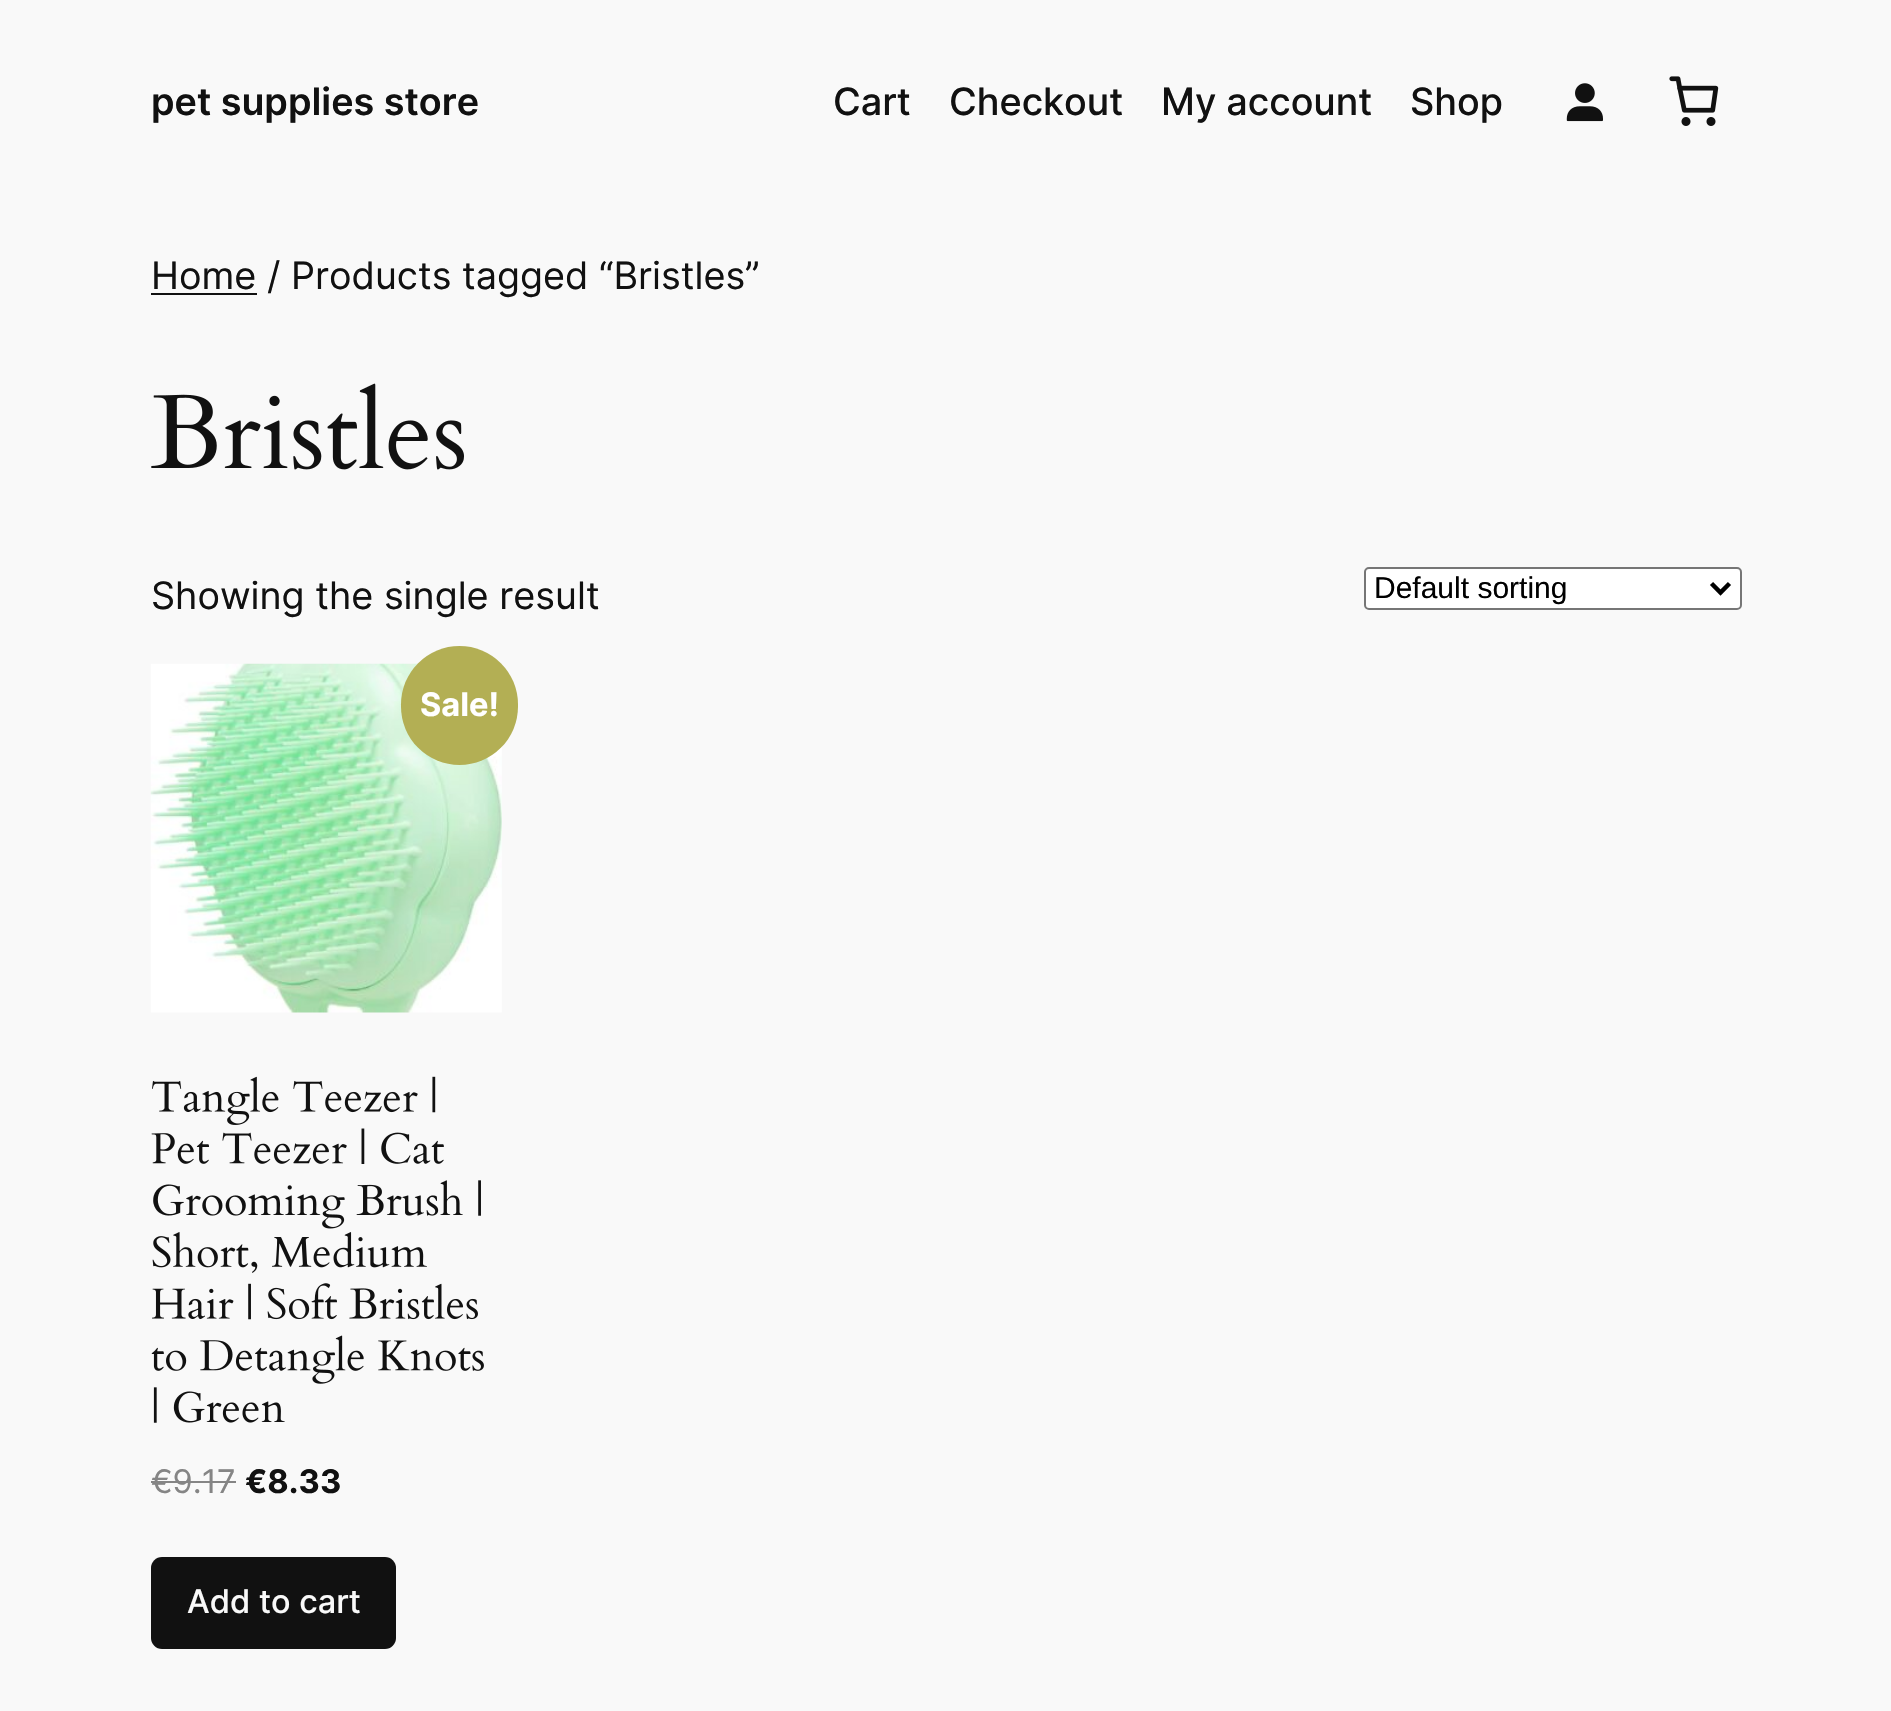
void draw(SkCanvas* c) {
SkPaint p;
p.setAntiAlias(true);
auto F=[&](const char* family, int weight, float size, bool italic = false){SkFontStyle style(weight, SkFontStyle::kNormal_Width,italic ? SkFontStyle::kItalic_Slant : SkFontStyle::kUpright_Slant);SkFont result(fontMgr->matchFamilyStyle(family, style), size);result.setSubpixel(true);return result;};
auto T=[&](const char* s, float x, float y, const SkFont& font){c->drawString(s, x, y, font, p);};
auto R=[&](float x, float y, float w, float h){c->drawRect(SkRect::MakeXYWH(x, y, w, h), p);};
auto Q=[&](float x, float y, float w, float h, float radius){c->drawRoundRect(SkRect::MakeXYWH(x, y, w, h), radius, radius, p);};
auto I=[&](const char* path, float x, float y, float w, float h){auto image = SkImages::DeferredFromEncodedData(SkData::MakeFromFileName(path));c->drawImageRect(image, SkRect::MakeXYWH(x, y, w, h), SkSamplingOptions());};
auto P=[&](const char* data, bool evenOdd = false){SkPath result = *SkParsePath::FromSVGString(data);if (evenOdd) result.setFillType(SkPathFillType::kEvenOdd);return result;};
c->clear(0xfff9f9f9);
auto f1 = F("Inter",600,37.75);
p.setColor(0xff111111);
T("pet supplies store",151,115,f1);
auto f2 = F("Inter",500,37.75);
T("Cart",833,115,f2);
T("Checkout",949,115,f2);
T("My account",1161,115,f2);
T("Shop",1410,115,f2);
I("1.png",1566,83,37,39);
I("2.png",1669,76,50,50);
R(151,293,106,2);
auto f3 = F("Inter",400,37.75);
T("Home / Products tagged “Bristles”",151,289,f3);
I("3.png",151,383,313,87);
T("Showing the single result",151,609,f3);
p.setColor(0xffffffff);
c->drawRoundRect(SkRect::MakeXYWH(1365,568,376,41),4,4,p);
p.setStroke(true);
p.setStrokeWidth(2);
p.setColor(0xff767676);
c->drawRoundRect(SkRect::MakeXYWH(1365,568,376,41),4,4,p);
p.setStrokeWidth(4.5);
p.setColor(0xff000000);
c->drawPath(P("M1711.5 583.5l9 9l9-9"),p);
auto f4 = F("Liberation Sans",400,30);
p.setStroke(false);
T("Default sorting",1374,598,f4);
I("4.png",150,663,352,350);
p.setColor(0xffb3af54);
Q(401,646,117,119,58.5);
auto f5 = F("Inter",700,32.5);
p.setColor(0xffffffff);
T("Sale!",420,716,f5);
I("5.png",152,1076,284,49);
I("6.png",151,1128,293,36);
I("7.png",153,1180,328,49);
I("8.png",152,1232,275,41);
I("9.png",152,1283,326,37);
I("10.png",151,1335,333,49);
I("11.png",153,1387,132,36);
auto f6 = F("Inter",400,32.5);
p.setColor(0xff858585);
T("€9.17",151,1493,f6);
R(151,1481,85,2);
p.setColor(0xff111111);
T("€8.33",245,1493,f5);
Q(151,1557,245,92,11);
auto f7 = F("Inter",500,32.5);
p.setColor(0xfff9f9f9);
T("Add to cart",187,1613,f7);
}
